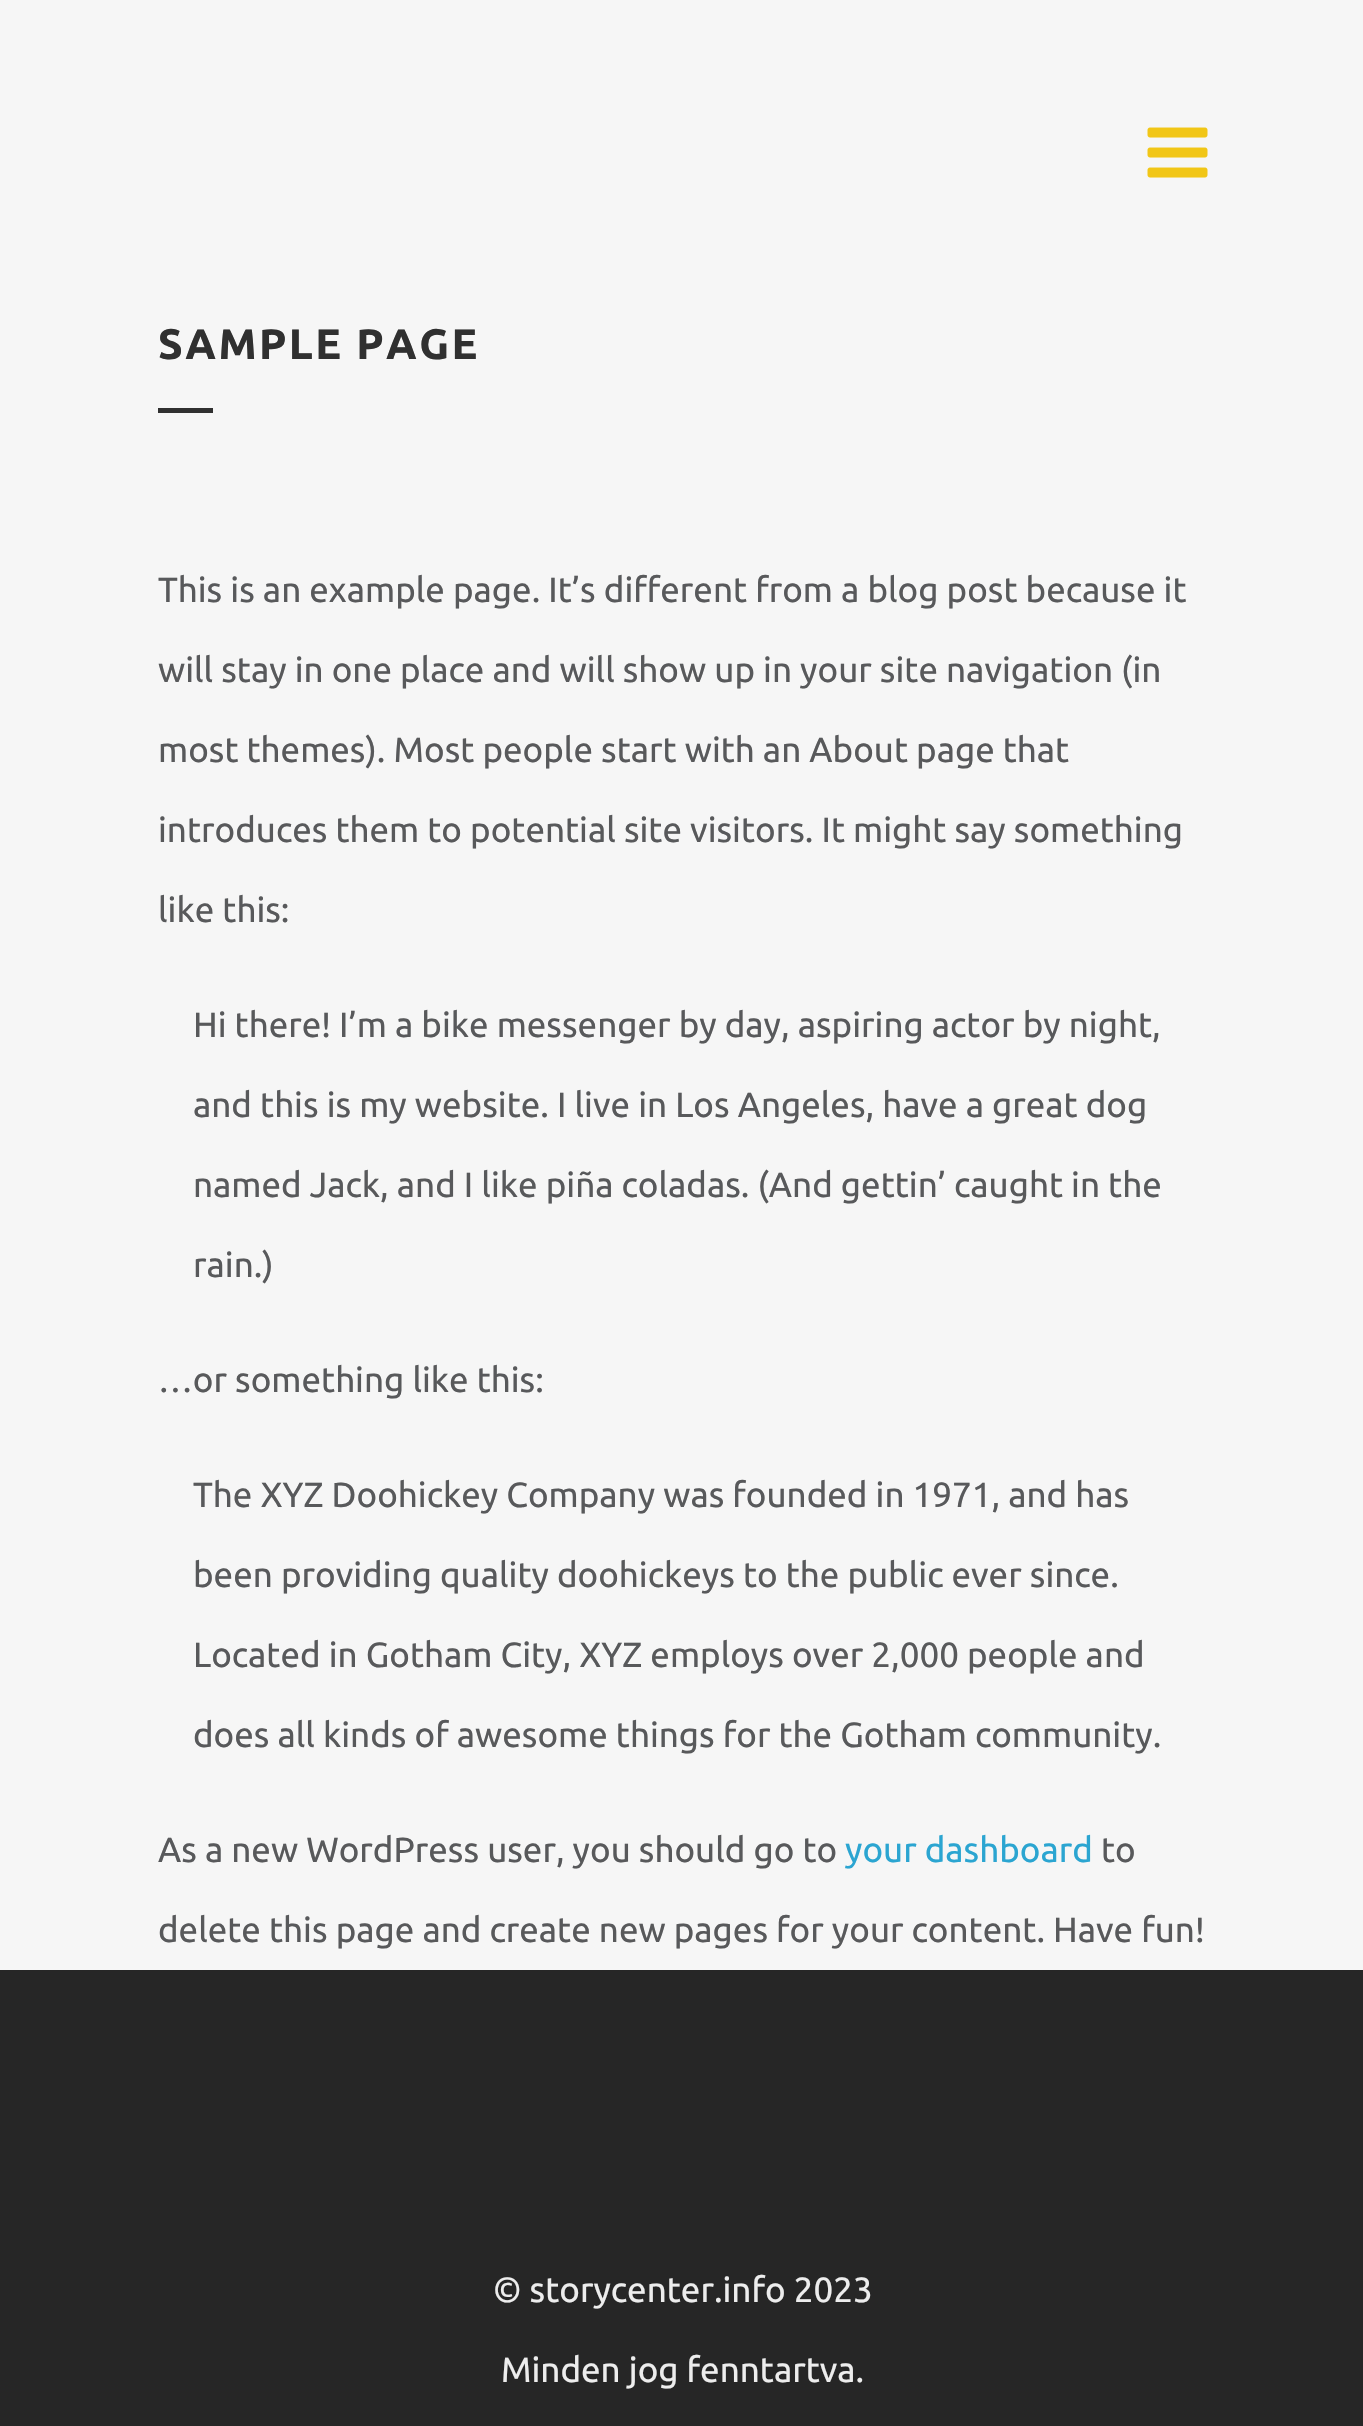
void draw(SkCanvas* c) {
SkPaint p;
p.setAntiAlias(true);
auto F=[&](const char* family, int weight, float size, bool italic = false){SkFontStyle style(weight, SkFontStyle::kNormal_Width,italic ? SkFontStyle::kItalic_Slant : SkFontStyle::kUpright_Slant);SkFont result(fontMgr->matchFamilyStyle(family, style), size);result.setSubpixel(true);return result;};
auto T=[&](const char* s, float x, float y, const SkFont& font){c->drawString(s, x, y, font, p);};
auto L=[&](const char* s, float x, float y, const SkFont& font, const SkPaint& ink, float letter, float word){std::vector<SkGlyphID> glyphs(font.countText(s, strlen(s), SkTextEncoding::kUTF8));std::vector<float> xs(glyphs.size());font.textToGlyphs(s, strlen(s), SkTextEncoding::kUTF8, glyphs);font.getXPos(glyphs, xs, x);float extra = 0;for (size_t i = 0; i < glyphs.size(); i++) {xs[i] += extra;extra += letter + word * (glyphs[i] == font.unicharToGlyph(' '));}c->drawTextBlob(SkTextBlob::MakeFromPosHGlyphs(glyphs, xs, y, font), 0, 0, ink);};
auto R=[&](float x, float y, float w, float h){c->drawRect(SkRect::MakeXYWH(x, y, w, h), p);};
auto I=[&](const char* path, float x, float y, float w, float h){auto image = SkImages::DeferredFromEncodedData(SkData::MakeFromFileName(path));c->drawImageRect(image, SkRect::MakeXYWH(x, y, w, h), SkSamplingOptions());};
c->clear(0xfff6f6f6);
I("1.png",1147,127,61,51);
auto f1 = F("Ubuntu",700,42.5);
p.setColor(0xff303030);
L("SAMPLE PAGE",158,359,f1,p,2.5,0);
R(158,408,55,5);
auto f2 = F("Ubuntu",400,35);
p.setColor(0xff58595b);
T("This is an example page. It’s different from a blog post because it",158,602,f2);
T("will stay in one place and will show up in your site navigation (in",158,682,f2);
T("most themes). Most people start with an About page that",158,762,f2);
T("introduces them to potential site visitors. It might say something",158,842,f2);
T("like this:",158,922,f2);
T("Hi there! I’m a bike messenger by day, aspiring actor by night,",193,1037,f2);
T("and this is my website. I live in Los Angeles, have a great dog",193,1117,f2);
T("named Jack, and I like piña coladas. (And gettin’ caught in the",193,1197,f2);
T("rain.)",193,1277,f2);
T("…or something like this:",158,1392,f2);
T("The XYZ Doohickey Company was founded in 1971, and has",193,1507,f2);
T("been providing quality doohickeys to the public ever since.",193,1587,f2);
T("Located in Gotham City, XYZ employs over 2,000 people and",193,1667,f2);
T("does all kinds of awesome things for the Gotham community.",193,1747,f2);
T("As a new WordPress user, you should go to",158,1862,f2);
p.setColor(0xff2ba5d1);
T("your dashboard",845,1862,f2);
p.setColor(0xff58595b);
T("to",1101,1862,f2);
T("delete this page and create new pages for your content. Have fun!",158,1942,f2);
p.setColor(0xff262626);
R(0,1970,1363,456);
p.setColor(0xffededed);
T("© storycenter.info 2023",493,2302,f2);
T("Minden jog fenntartva.",501,2382,f2);
}
